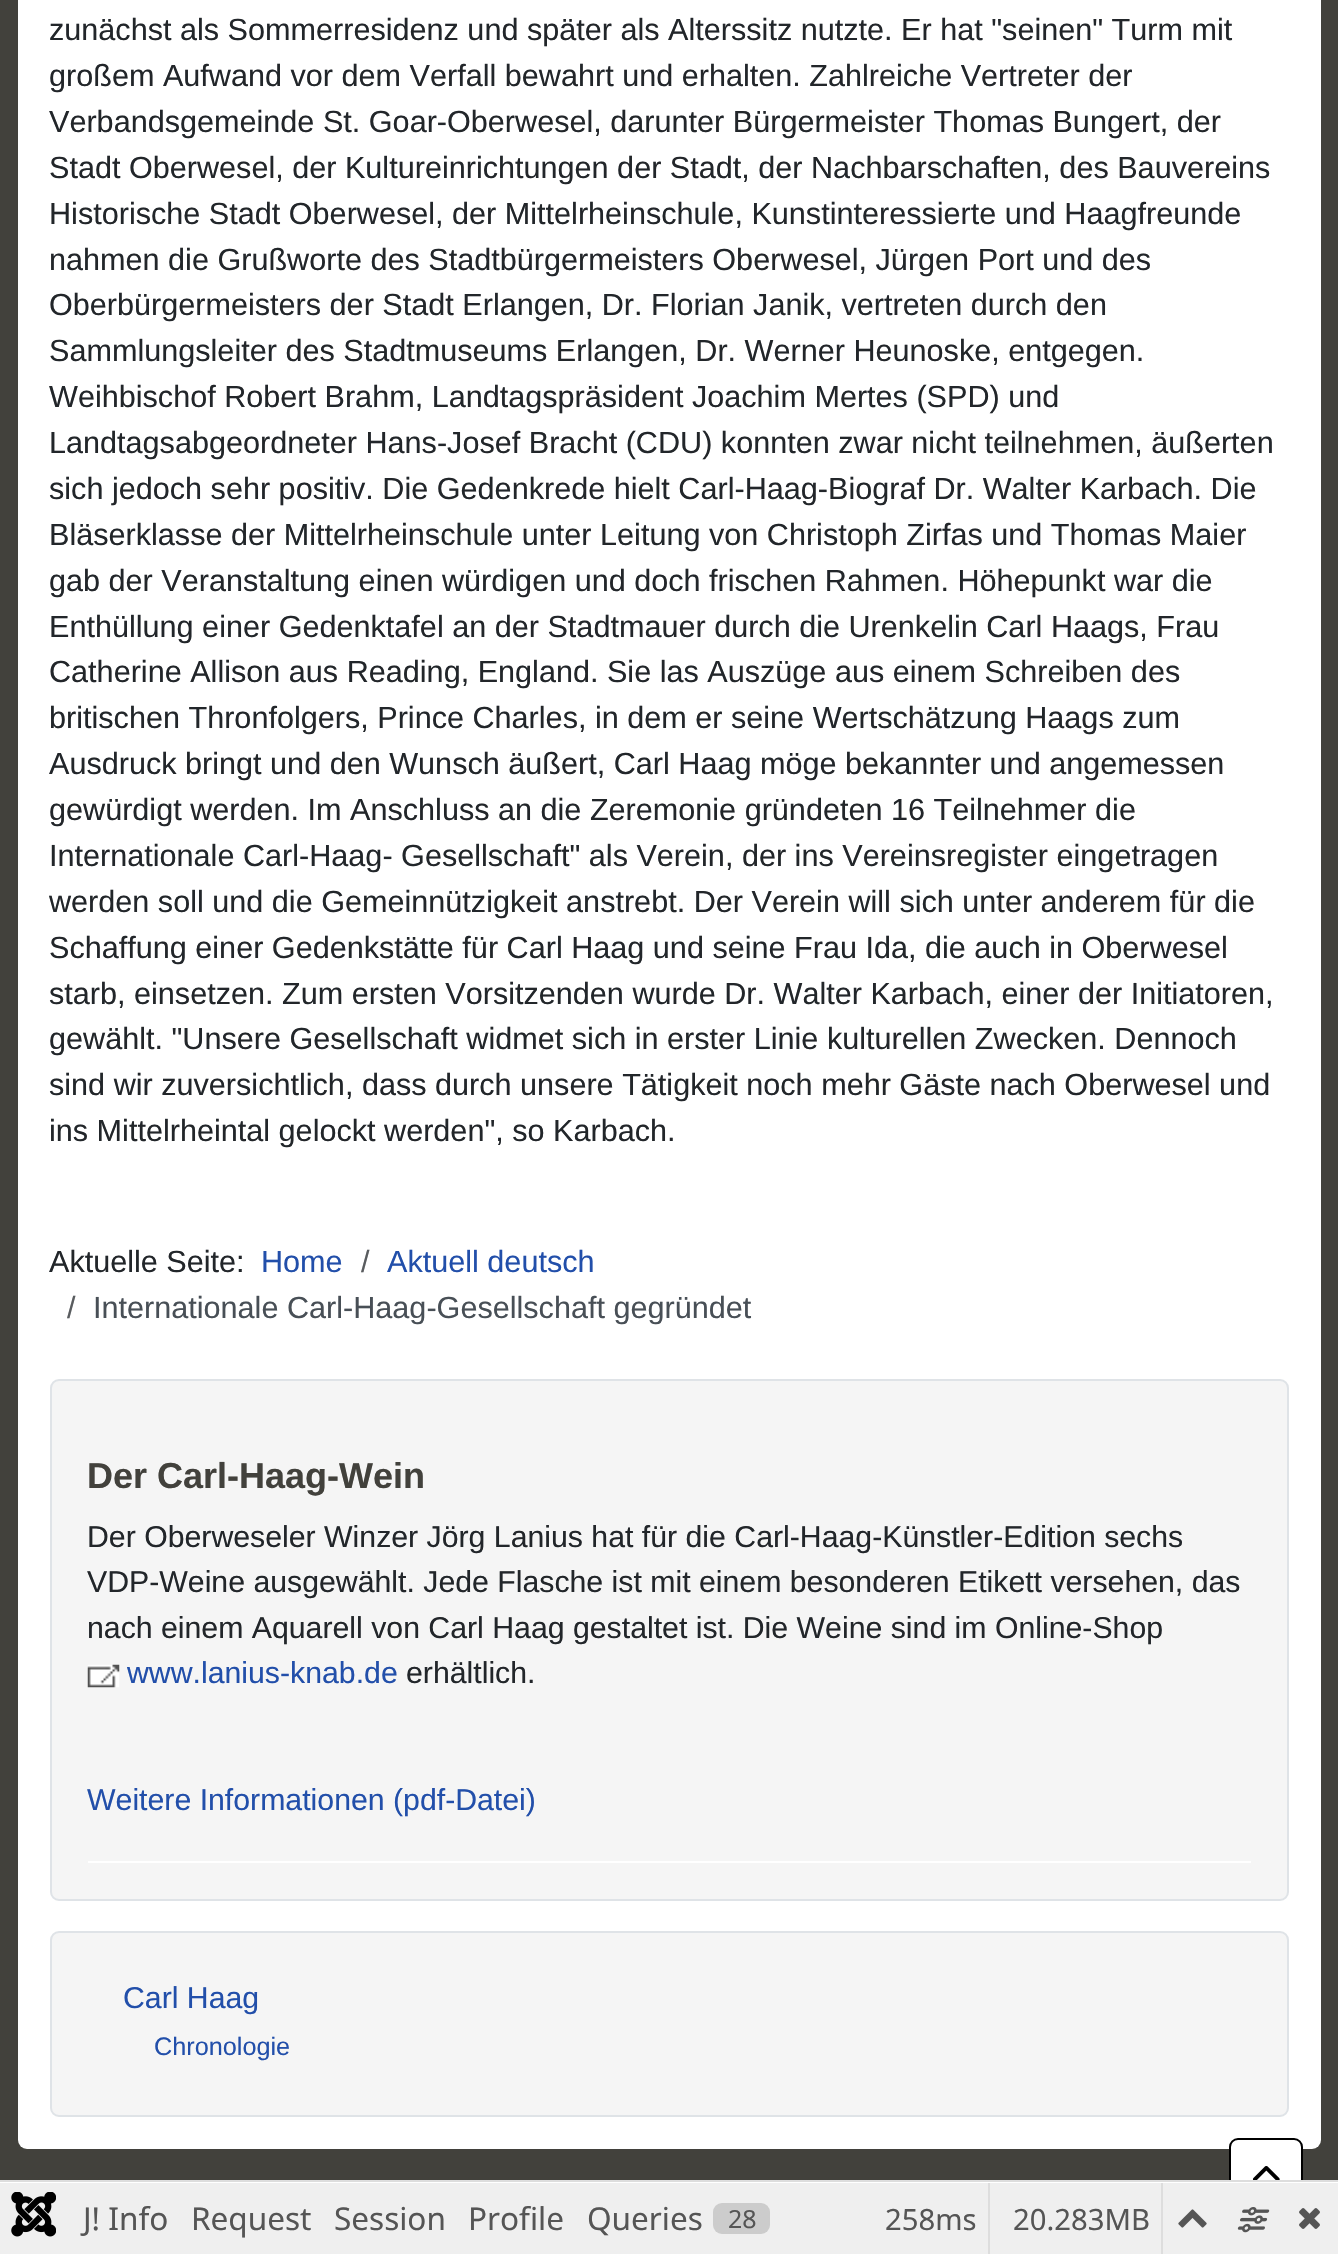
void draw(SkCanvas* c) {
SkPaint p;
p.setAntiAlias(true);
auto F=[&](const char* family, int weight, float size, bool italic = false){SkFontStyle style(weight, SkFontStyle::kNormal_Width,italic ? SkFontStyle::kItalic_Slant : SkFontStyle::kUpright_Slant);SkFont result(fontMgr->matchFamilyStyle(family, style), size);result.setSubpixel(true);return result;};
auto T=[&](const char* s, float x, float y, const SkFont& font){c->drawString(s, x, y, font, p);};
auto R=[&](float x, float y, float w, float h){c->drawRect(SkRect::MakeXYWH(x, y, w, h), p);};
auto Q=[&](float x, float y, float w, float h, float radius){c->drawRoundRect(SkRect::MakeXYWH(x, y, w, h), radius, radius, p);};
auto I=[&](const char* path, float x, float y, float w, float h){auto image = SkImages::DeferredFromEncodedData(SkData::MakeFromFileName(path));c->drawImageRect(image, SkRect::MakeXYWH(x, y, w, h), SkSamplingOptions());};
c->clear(0xff42413c);
p.setColor(0xffffffff);
Q(18,-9,1303,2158,9);
auto f1 = F("Liberation Sans",400,30.6);
p.setColor(0xff22262a);
T("zunächst als Sommerresidenz und später als Alterssitz nutzte. Er hat \"seinen\" Turm mit",49,40,f1);
T("großem Aufwand vor dem Verfall bewahrt und erhalten. Zahlreiche Vertreter der",49,86,f1);
T("Verbandsgemeinde St. Goar-Oberwesel, darunter Bürgermeister Thomas Bungert, der",49,132,f1);
T("Stadt Oberwesel, der Kultureinrichtungen der Stadt, der Nachbarschaften, des Bauvereins",49,178,f1);
T("Historische Stadt Oberwesel, der Mittelrheinschule, Kunstinteressierte und Haagfreunde",49,224,f1);
T("nahmen die Grußworte des Stadtbürgermeisters Oberwesel, Jürgen Port und des",49,270,f1);
T("Oberbürgermeisters der Stadt Erlangen, Dr. Florian Janik, vertreten durch den",49,315,f1);
T("Sammlungsleiter des Stadtmuseums Erlangen, Dr. Werner Heunoske, entgegen.",49,361,f1);
T("Weihbischof Robert Brahm, Landtagspräsident Joachim Mertes (SPD) und",49,407,f1);
T("Landtagsabgeordneter Hans-Josef Bracht (CDU) konnten zwar nicht teilnehmen, äußerten",49,453,f1);
T("sich jedoch sehr positiv. Die Gedenkrede hielt Carl-Haag-Biograf Dr. Walter Karbach. Die",49,499,f1);
T("Bläserklasse der Mittelrheinschule unter Leitung von Christoph Zirfas und Thomas Maier",49,545,f1);
T("gab der Veranstaltung einen würdigen und doch frischen Rahmen. Höhepunkt war die",49,591,f1);
T("Enthüllung einer Gedenktafel an der Stadtmauer durch die Urenkelin Carl Haags, Frau",49,637,f1);
T("Catherine Allison aus Reading, England. Sie las Auszüge aus einem Schreiben des",49,682,f1);
T("britischen Thronfolgers, Prince Charles, in dem er seine Wertschätzung Haags zum",49,728,f1);
T("Ausdruck bringt und den Wunsch äußert, Carl Haag möge bekannter und angemessen",49,774,f1);
T("gewürdigt werden. Im Anschluss an die Zeremonie gründeten 16 Teilnehmer die",49,820,f1);
T("Internationale Carl-Haag- Gesellschaft\" als Verein, der ins Vereinsregister eingetragen",49,866,f1);
T("werden soll und die Gemeinnützigkeit anstrebt. Der Verein will sich unter anderem für die",49,912,f1);
T("Schaffung einer Gedenkstätte für Carl Haag und seine Frau Ida, die auch in Oberwesel",49,958,f1);
T("starb, einsetzen. Zum ersten Vorsitzenden wurde Dr. Walter Karbach, einer der Initiatoren,",49,1004,f1);
T("gewählt. \"Unsere Gesellschaft widmet sich in erster Linie kulturellen Zwecken. Dennoch",49,1049,f1);
T("sind wir zuversichtlich, dass durch unsere Tätigkeit noch mehr Gäste nach Oberwesel und",49,1095,f1);
T("ins Mittelrheintal gelockt werden\", so Karbach.",49,1141,f1);
T("Aktuelle Seite:",49,1272,f1);
p.setColor(0xff224faa);
T("Home",261,1272,f1);
p.setColor(0xff595c5f);
T("/",361,1272,f1);
p.setColor(0xff224faa);
T("Aktuell deutsch",387,1272,f1);
p.setColor(0xff595c5f);
T("/",67,1318,f1);
p.setColor(0xff484f56);
T("Internationale Carl-Haag-Gesellschaft gegründet",93,1318,f1);
p.setColor(0xfff5f5f5);
c->drawRoundRect(SkRect::MakeXYWH(51,1380,1237,520),8,8,p);
p.setStroke(true);
p.setStrokeWidth(2);
p.setColor(0xffdfe3e7);
c->drawRoundRect(SkRect::MakeXYWH(51,1380,1237,520),8,8,p);
p.setStroke(false);
p.setColor(0xffffffff);
R(88,1861,1163,2);
auto f2 = F("Liberation Sans",700,36);
p.setColor(0xff42413c);
T("Der Carl-Haag-Wein",87,1488,f2);
auto f3 = F("Liberation Sans",400,30.25);
p.setColor(0xff22262a);
T("Der Oberweseler Winzer Jörg Lanius hat für die Carl-Haag-Künstler-Edition sechs",87,1547,f3);
T("VDP-Weine ausgewählt. Jede Flasche ist mit einem besonderen Etikett versehen, das",87,1592,f3);
T("nach einem Aquarell von Carl Haag gestaltet ist. Die Weine sind im Online-Shop",87,1638,f3);
I("1.png",87,1664,33,24);
p.setColor(0xff224faa);
T("www.lanius-knab.de",127,1683,f3);
p.setColor(0xff22262a);
T("erhältlich.",406,1683,f3);
p.setColor(0xff224faa);
T("Weitere Informationen (pdf-Datei)",87,1810,f3);
p.setColor(0xfff5f5f5);
c->drawRoundRect(SkRect::MakeXYWH(51,1932,1237,184),8,8,p);
p.setStroke(true);
p.setColor(0xffdfe3e7);
c->drawRoundRect(SkRect::MakeXYWH(51,1932,1237,184),8,8,p);
p.setStroke(false);
p.setColor(0xff224faa);
T("Carl Haag",123,2008,f3);
auto f4 = F("Liberation Sans",400,25.25);
T("Chronologie",154,2055,f4);
p.setColor(0xffffffff);
c->drawRoundRect(SkRect::MakeXYWH(1230,2139,72,79),8,8,p);
p.setStroke(true);
p.setColor(0xff000000);
c->drawRoundRect(SkRect::MakeXYWH(1230,2139,72,79),8,8,p);
p.setStroke(false);
p.setColor(0xffffffff);
R(0,2182,1338,1);
p.setColor(0xffdddddd);
R(0,2180,1338,2);
p.setColor(0xffefefef);
R(0,2183,1338,71);
I("2.png",11,2192,45,45);
auto f5 = F("Noto Sans",400,31.5);
p.setColor(0xff555555);
T("J! Info",83,2230,f5);
T("Request",191,2230,f5);
T("Session",334,2230,f5);
T("Profile",468,2230,f5);
T("Queries",587,2230,f5);
p.setColor(0xffcccccc);
Q(713,2203,57,31,9);
auto f6 = F("Noto Sans",400,25);
p.setColor(0xff555555);
T("28",728,2228,f6);
p.setColor(0xffdddddd);
R(988,2183,2,71);
auto f7 = F("Noto Sans",400,29.25);
p.setColor(0xff555555);
T("258ms",885,2230,f7);
p.setColor(0xffdddddd);
R(1161,2183,2,71);
p.setColor(0xff555555);
T("20.283MB",1013,2230,f7);
I("3.png",1178,2209,29,19);
I("4.png",1237,2207,33,26);
I("5.png",1299,2208,21,21);
I("6.png",1252,2166,28,14);
}
